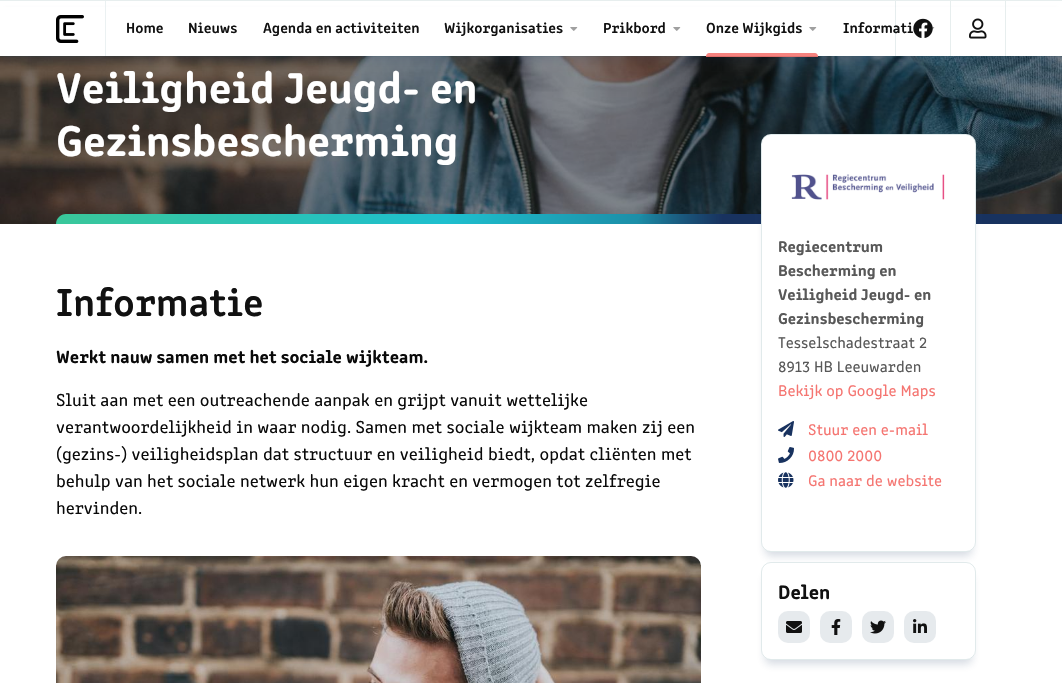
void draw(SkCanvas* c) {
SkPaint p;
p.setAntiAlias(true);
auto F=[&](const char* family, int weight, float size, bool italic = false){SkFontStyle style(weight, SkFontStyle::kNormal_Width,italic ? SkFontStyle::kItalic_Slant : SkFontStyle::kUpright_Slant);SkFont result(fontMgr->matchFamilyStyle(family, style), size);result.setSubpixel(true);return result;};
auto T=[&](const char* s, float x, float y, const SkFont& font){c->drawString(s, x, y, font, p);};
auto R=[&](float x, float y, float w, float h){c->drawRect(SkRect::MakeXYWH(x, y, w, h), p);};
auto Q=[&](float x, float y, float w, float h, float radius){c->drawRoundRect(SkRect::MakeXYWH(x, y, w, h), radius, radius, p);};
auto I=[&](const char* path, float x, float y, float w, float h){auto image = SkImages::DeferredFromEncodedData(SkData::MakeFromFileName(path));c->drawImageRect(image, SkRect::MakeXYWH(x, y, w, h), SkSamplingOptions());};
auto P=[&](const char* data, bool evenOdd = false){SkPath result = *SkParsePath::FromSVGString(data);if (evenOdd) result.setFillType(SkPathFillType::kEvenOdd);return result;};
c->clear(0xffffffff);
p.setColor(0xff111111);
R(0,56,1062,168);
I("6.png",0,56,1062,168);
p.setColor(0x1f18325f);
p.setMaskFilter(SkMaskFilter::MakeBlur(kNormal_SkBlurStyle, 4));
c->drawRect(SkRect::MakeXYWH(4,12,1054,48),p);
p.setMaskFilter(nullptr);
p.setColor(0xffffffff);
R(0,7,1062,49);
p.setColor(0xffe7eeee);
R(0,0,1062,1);
I("1.png",56,15,28,28);
p.setColor(0xffebf1f2);
R(105,1,1,55);
auto f1 = F("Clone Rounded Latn",600,15);
p.setColor(0xff111111);
T("Home",126,33,f1);
T("Nieuws",188,33,f1);
T("Agenda en activiteiten",263,33,f1);
T("Wijkorganisaties",444,33,f1);
I("2.png",570,27,8,4);
T("Prikbord",603,33,f1);
I("2.png",673,27,8,4);
T("Onze Wijkgids",706,33,f1);
I("2.png",809,27,8,4);
p.setColor(0x1a0b5057);
R(0,56,1062,1);
p.setColor(0xe6f57571);
c->drawPath(P("M709 53h106c1.5 0 3 1.5 3 3v1h-112v-1c0-1.5 1.5-3 3-3z"),p);
p.setColor(0xff111111);
T("Informati",843,33,f1);
I("3.png",927,27,8,3);
p.setColor(0x1a0b5057);
R(895,1,1,55);
p.setColor(0xffe7eeee);
R(950,1,1,55);
I("4.png",913,18,20,20);
R(1005,1,1,55);
I("5.png",969,18,18,21);
auto f2 = F("Clone Rounded Latn",700,44);
p.setColor(0xffffffff);
T("Veiligheid Jeugd- en",56,103,f2);
T("Gezinsbescherming",56,156,f2);
{
const SkColor colors[] = {0xff3ac79a,0xff1ebfce,0xff18325f};
const float stops[] = {0,.41,1};
const SkPoint ends[] = {{91,93}, {971,345}};
p.setShader(SkGradientShader::MakeLinear(ends, colors, stops, 3, SkTileMode::kClamp));
p.setAlpha(255);
}
c->drawPath(P("M66 214h930c5.5 0 10 4.5 10 10h-950c0-5.5 4.5-10 10-10z"),p);
{
const SkColor colors[] = {0x0018325f,0xff18325f,0xff18325f};
const float stops[] = {0,.09,1};
const SkPoint ends[] = {{637,219}, {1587,219}};
p.setShader(SkGradientShader::MakeLinear(ends, colors, stops, 3, SkTileMode::kClamp));
p.setAlpha(255);
}
c->drawPath(P("M647 214h415v10h-425c0-5.5 4.5-10 10-10z"),p);
auto f3 = F("Clone Rounded Latn",600,40);
p.setShader(nullptr);
p.setColor(0xff111111);
T("Informatie",56,316,f3);
auto f4 = F("Clone Rounded Latn",700,18);
p.setColor(0xff0a0a0a);
T("Werkt nauw samen met het sociale wijkteam.",56,363,f4);
auto f5 = F("Clone Rounded Latn",400,18);
T("Sluit aan met een outreachende aanpak en grijpt vanuit wettelijke",56,406,f5);
T("verantwoordelijkheid in waar nodig. Samen met sociale wijkteam maken zij een",56,433,f5);
T("(gezins-) veiligheidsplan dat structuur en veiligheid biedt, opdat cliënten met",56,460,f5);
T("behulp van het sociale netwerk hun eigen kracht en vermogen tot zelfregie",56,487,f5);
T("hervinden.",56,514,f5);
I("7.png",56,556,645,127);
p.setColor(0x2e18325f);
p.setMaskFilter(SkMaskFilter::MakeBlur(kNormal_SkBlurStyle, 4));
c->drawRoundRect(SkRect::MakeXYWH(765,146,207,410),6,6,p);
p.setMaskFilter(nullptr);
p.setColor(0xffffffff);
Q(761,134,215,418,10);
p.setStroke(true);
p.setStrokeWidth(1);
p.setColor(0x1f0b5057);
c->drawRoundRect(SkRect::MakeXYWH(761.5,134.5,214,417),9.5,9.5,p);
I("8.png",791,174,154,26);
auto f6 = F("Clone Rounded Latn",700,16);
p.setStroke(false);
p.setColor(0xff585858);
T("Regiecentrum",778,252,f6);
T("Bescherming en",778,276,f6);
T("Veiligheid Jeugd- en",778,300,f6);
T("Gezinsbescherming",778,324,f6);
auto f7 = F("Clone Rounded Latn",400,16);
T("Tesselschadestraat 2",778,348,f7);
T("8913 HB Leeuwarden",778,372,f7);
p.setColor(0xfff57571);
T("Bekijk op Google Maps",778,396,f7);
I("9.png",778,421,16,16);
T("Stuur een e-mail",808,435,f7);
I("10.png",778,447,16,16);
T("0800 2000",808,461,f7);
I("11.png",778,472,16,16);
T("Ga naar de website",808,486,f7);
p.setColor(0x2e18325f);
p.setMaskFilter(SkMaskFilter::MakeBlur(kNormal_SkBlurStyle, 4));
c->drawRoundRect(SkRect::MakeXYWH(765,574,207,90),6,6,p);
p.setMaskFilter(nullptr);
p.setColor(0xffffffff);
Q(761,562,215,98,10);
p.setStroke(true);
p.setColor(0x1f0b5057);
c->drawRoundRect(SkRect::MakeXYWH(761.5,562.5,214,97),9.5,9.5,p);
auto f8 = F("Clone Rounded Latn",700,20);
p.setStroke(false);
p.setColor(0xff111111);
T("Delen",778,599,f8);
p.setColor(0xffe6eaed);
Q(778,611,32,32,10);
I("12.png",786,621,16,12);
Q(820,611,32,32,10);
I("13.png",831,619,10,16);
Q(862,611,32,32,10);
I("14.png",870,620,16,14);
Q(904,611,32,32,10);
I("15.png",913,619,14,14);
}
